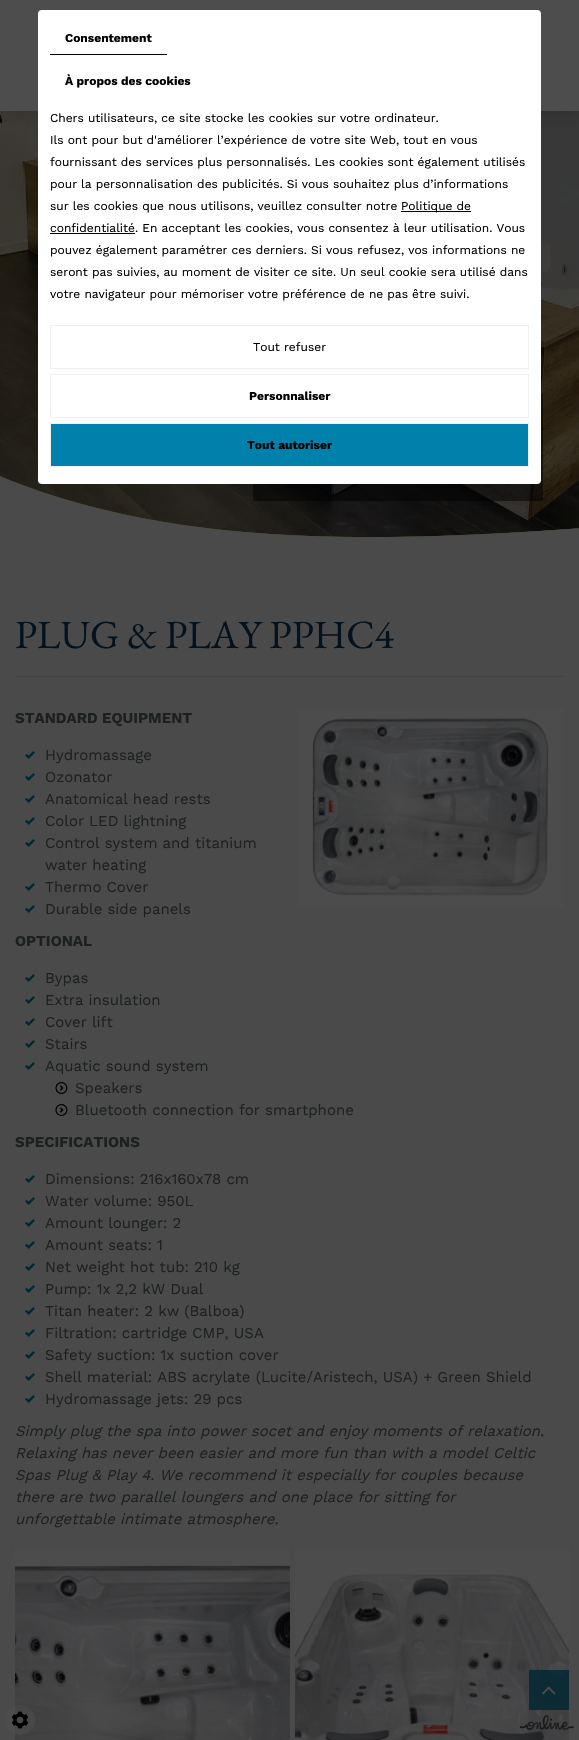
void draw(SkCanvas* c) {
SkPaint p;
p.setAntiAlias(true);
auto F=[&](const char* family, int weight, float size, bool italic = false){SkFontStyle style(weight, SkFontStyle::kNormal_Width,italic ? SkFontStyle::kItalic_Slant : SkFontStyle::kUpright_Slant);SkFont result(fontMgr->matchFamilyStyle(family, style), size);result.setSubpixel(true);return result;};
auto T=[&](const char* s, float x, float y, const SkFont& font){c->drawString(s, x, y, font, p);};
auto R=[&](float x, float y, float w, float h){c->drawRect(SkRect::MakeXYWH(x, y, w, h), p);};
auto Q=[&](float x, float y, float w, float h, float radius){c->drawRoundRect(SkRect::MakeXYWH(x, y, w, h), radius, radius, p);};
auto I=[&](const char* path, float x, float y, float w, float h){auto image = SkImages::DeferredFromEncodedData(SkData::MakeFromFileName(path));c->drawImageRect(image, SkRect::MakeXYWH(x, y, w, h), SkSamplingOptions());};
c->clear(0xff4a4a4a);
I("1.png",0,111,579,426);
p.setColor(0x33000000);
p.setMaskFilter(SkMaskFilter::MakeBlur(kNormal_SkBlurStyle, 10));
c->drawRect(SkRect::MakeXYWH(0,0,579,111),p);
p.setMaskFilter(nullptr);
p.setColor(0xff4d4d4d);
R(0,0,579,111);
p.setColor(0x80000000);
Q(253,393,290,108,2);
I("2.png",0,476,579,61);
I("3.png",0,476,579,61);
I("4.png",0,476,579,61);
I("5.png",0,476,577,61);
p.setColor(0xffffffff);
Q(38,10,503,474,4);
p.setColor(0xff000000);
R(50,54,117,1);
auto f1 = F("Work Sans",700,12);
T("Consentement",65,42,f1);
T("À propos des cookies",65,85,f1);
auto f2 = F("Work Sans",400,12);
T("Chers utilisateurs, ce site stocke les cookies sur votre ordinateur.",50,122,f2);
T("Ils ont pour but d'améliorer l’expérience de votre site Web, tout en vous",50,144,f2);
T("fournissant des services plus personnalisés. Les cookies sont également utilisés",50,166,f2);
T("pour la personnalisation des publicités. Si vous souhaitez plus d’informations",50,188,f2);
T("sur les cookies que nous utilisons, veuillez consulter notre",50,210,f2);
R(401,211,70,1);
T("Politique de",401,210,f2);
R(50,233,85,1);
T("confidentialité. En acceptant les cookies, vous consentez à leur utilisation. Vous",50,232,f2);
T("pouvez également paramétrer ces derniers. Si vous refusez, vos informations ne",50,254,f2);
T("seront pas suivies, au moment de visiter ce site. Un seul cookie sera utilisé dans",50,276,f2);
T("votre navigateur pour mémoriser votre préférence de ne pas être suivi.",50,298,f2);
p.setStroke(true);
p.setStrokeWidth(1);
p.setColor(0xfff0f0f0);
c->drawRect(SkRect::MakeXYWH(50.5,325.5,478,43),p);
p.setStroke(false);
p.setColor(0xff000000);
T("Tout refuser",253,351,f2);
p.setStroke(true);
p.setColor(0xfff0f0f0);
c->drawRect(SkRect::MakeXYWH(50.5,374.5,478,43),p);
p.setStroke(false);
p.setColor(0xff000000);
T("Personnaliser",249,400,f1);
p.setColor(0xff0081ac);
c->drawRect(SkRect::MakeXYWH(50.5,423.5,478,43),p);
p.setStroke(true);
p.setColor(0xfff0f0f0);
c->drawRect(SkRect::MakeXYWH(50.5,423.5,478,43),p);
p.setStroke(false);
p.setColor(0xff000000);
T("Tout autoriser",247,449,f1);
p.setColor(0xff414141);
R(15,676,549,1);
auto f3 = F("EB Garamond",400,40);
p.setColor(0xff04121d);
T("PLUG & PLAY PPHC4",15,648,f3);
auto f4 = F("Work Sans",700,15);
p.setColor(0xff1d2021);
T("STANDARD EQUIPMENT",15,723,f4);
I("6.png",297,707,267,200);
I("7.png",25,751,10,8);
auto f5 = F("Work Sans",400,15);
T("Hydromassage",45,760,f5);
I("7.png",25,773,10,8);
T("Ozonator",45,782,f5);
I("7.png",25,795,10,8);
T("Anatomical head rests",45,804,f5);
I("7.png",25,817,10,8);
T("Color LED lightning",45,826,f5);
I("7.png",25,839,10,8);
T("Control system and titanium",45,848,f5);
T("water heating",45,870,f5);
I("7.png",25,883,10,8);
T("Thermo Cover",45,892,f5);
I("7.png",25,905,10,8);
T("Durable side panels",45,914,f5);
T("OPTIONAL",15,946,f4);
I("7.png",25,974,10,8);
T("Bypas",45,983,f5);
I("7.png",25,996,10,8);
T("Extra insulation",45,1005,f5);
I("7.png",25,1018,10,8);
T("Cover lift",45,1027,f5);
I("7.png",25,1040,10,8);
T("Stairs",45,1049,f5);
I("7.png",25,1062,10,8);
T("Aquatic sound system",45,1071,f5);
I("8.png",55,1082,13,12);
T("Speakers",75,1093,f5);
I("8.png",55,1104,13,12);
T("Bluetooth connection for smartphone",75,1115,f5);
T("SPECIFICATIONS",15,1147,f4);
I("7.png",25,1175,10,8);
T("Dimensions: 216x160x78 cm",45,1184,f5);
I("7.png",25,1197,10,8);
T("Water volume: 950L",45,1206,f5);
I("7.png",25,1219,10,8);
T("Amount lounger: 2",45,1228,f5);
I("7.png",25,1241,10,8);
T("Amount seats: 1",45,1250,f5);
I("7.png",25,1263,10,8);
T("Net weight hot tub: 210 kg",45,1272,f5);
I("7.png",25,1285,10,8);
T("Pump: 1x 2,2 kW Dual",45,1294,f5);
I("7.png",25,1307,10,8);
T("Titan heater: 2 kw (Balboa)",45,1316,f5);
I("7.png",25,1329,10,8);
T("Filtration: cartridge CMP, USA",45,1338,f5);
I("7.png",25,1351,10,8);
T("Safety suction: 1x suction cover",45,1360,f5);
I("7.png",25,1373,10,8);
T("Shell material: ABS acrylate (Lucite/Aristech, USA) + Green Shield",45,1382,f5);
I("7.png",25,1395,10,8);
T("Hydromassage jets: 29 pcs",45,1404,f5);
auto f6 = F("Work Sans",400,15,true);
T("Simply plug the spa into power socet and enjoy moments of relaxation.",15,1436,f6);
T("Relaxing has never been easier and more fun than with a model Celtic",15,1458,f6);
T("Spas Plug & Play 4. We recommend it especially for couples because",15,1480,f6);
T("there are two parallel loungers and one place for sitting for",15,1502,f6);
T("unforgettable intimate atmosphere.",15,1524,f6);
I("9.png",15,1545,275,195);
I("10.png",295,1545,274,195);
p.setColor(0xcc002531);
R(529,1670,40,40);
I("11.png",542,1686,14,9);
p.setColor(0x8a4d4d4d);
c->drawCircle(20,1720,15,p);
I("12.png",11,1711,18,18);
I("13.png",520,1715,54,15);
}
